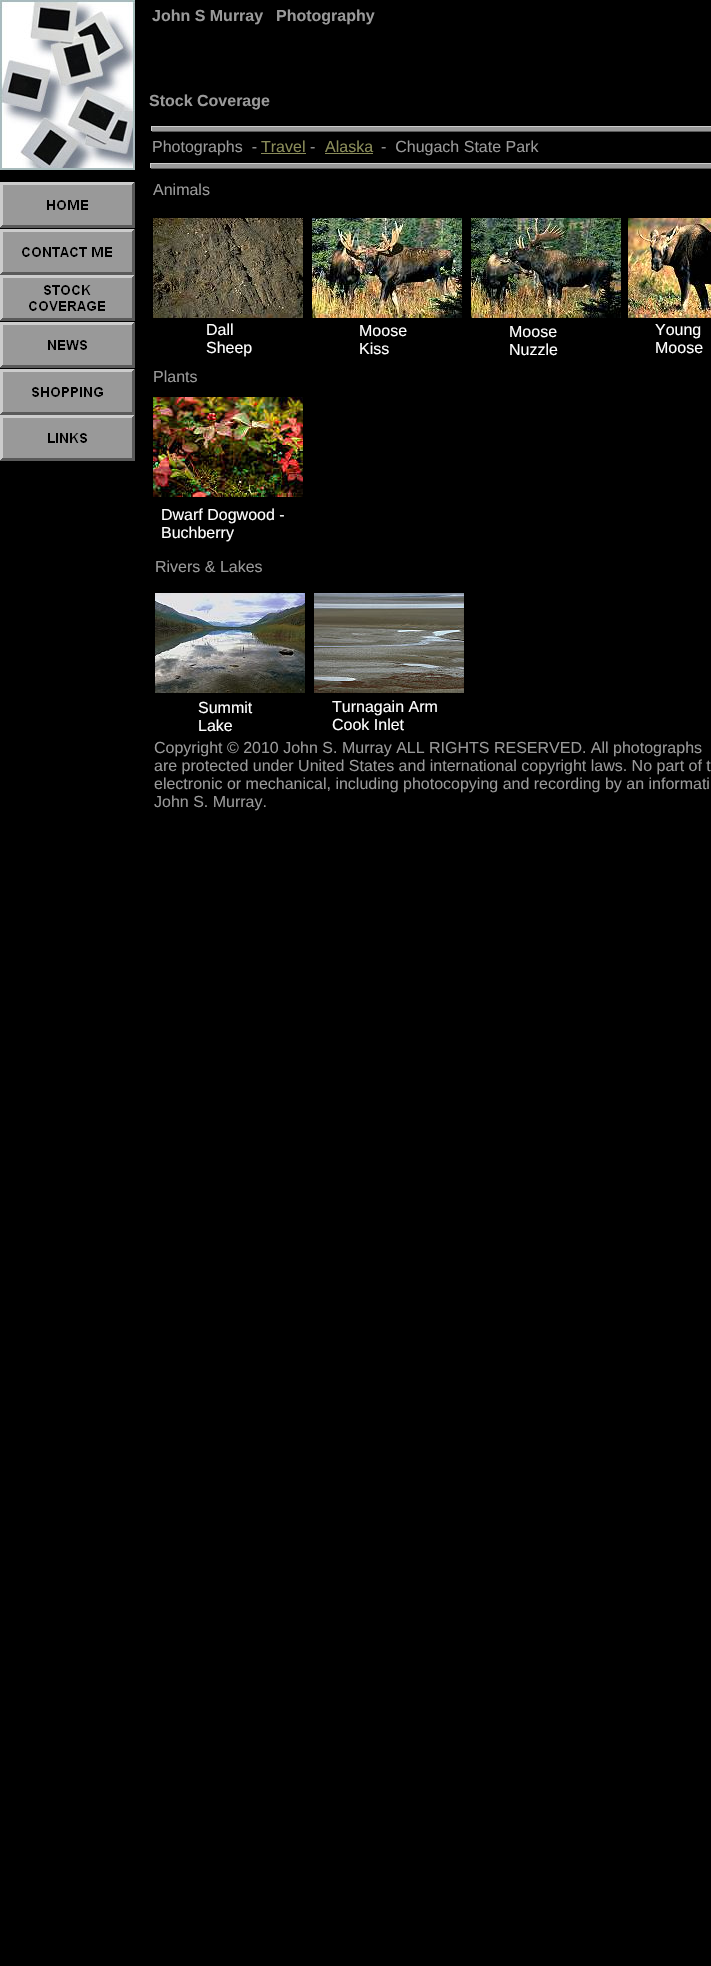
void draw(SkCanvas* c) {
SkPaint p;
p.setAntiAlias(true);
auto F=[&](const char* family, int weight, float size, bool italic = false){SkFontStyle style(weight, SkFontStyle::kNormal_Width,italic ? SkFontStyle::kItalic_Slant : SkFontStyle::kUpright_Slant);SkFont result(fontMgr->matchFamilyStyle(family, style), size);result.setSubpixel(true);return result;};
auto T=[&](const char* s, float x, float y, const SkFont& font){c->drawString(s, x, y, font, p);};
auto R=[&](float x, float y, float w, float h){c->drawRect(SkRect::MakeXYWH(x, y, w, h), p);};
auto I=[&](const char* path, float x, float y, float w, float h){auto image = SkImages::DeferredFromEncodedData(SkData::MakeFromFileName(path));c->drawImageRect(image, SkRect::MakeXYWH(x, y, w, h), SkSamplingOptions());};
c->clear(0xff000000);
I("1.png",0,0,135,170);
auto f1 = F("Liberation Sans",700,16);
p.setColor(0xff999999);
T("John S Murray",152,21,f1);
T("Photography",276,21,f1);
T("Stock Coverage",149,106,f1);
p.setColor(0xffcccccc);
R(151,126,560,1);
R(151,127,1,4);
p.setColor(0xff999999);
R(152,127,559,4);
p.setColor(0xff5a5a5a);
R(152,131,559,1);
auto f2 = F("Liberation Sans",400,16);
p.setColor(0xff999999);
T("Photographs  -",152,152,f2);
p.setColor(0xff8a8c59);
T("Travel",261,152,f2);
R(261,153,45,1);
p.setColor(0xff999999);
T("-",310,152,f2);
p.setColor(0xff8a8c59);
T("Alaska",325,152,f2);
R(325,153,48,1);
p.setColor(0xff999999);
T("-  Chugach State Park",381,152,f2);
p.setColor(0xffcccccc);
R(150,163,561,1);
R(150,164,1,4);
p.setColor(0xff999999);
R(151,164,560,4);
p.setColor(0xff5a5a5a);
R(151,168,560,1);
I("2.png",0,182,135,46);
p.setColor(0xff999999);
T("Animals",153,195,f2);
I("3.png",0,229,135,46);
I("4.png",153,218,150,100);
I("5.png",312,218,150,100);
I("6.png",471,218,150,100);
I("7.png",628,218,83,100);
I("8.png",0,275,135,46);
I("9.png",0,322,135,46);
p.setColor(0xffffffff);
T("Dall",206,335,f2);
T("Sheep",206,353,f2);
T("Moose",359,336,f2);
T("Kiss",359,354,f2);
T("Moose",509,337,f2);
T("Nuzzle",509,355,f2);
T("Young",655,335,f2);
T("Moose",655,353,f2);
I("10.png",0,369,135,46);
p.setColor(0xff999999);
T("Plants",153,382,f2);
I("11.png",0,415,135,46);
I("12.png",153,397,150,100);
p.setColor(0xffffffff);
T("Dwarf Dogwood -",161,520,f2);
T("Buchberry",161,538,f2);
p.setColor(0xff999999);
T("Rivers & Lakes",155,572,f2);
I("13.png",155,593,150,100);
I("14.png",314,593,150,100);
p.setColor(0xffffffff);
T("Summit",198,713,f2);
T("Lake",198,731,f2);
T("Turnagain Arm",332,712,f2);
T("Cook Inlet",332,730,f2);
p.setColor(0xff999999);
T("Copyright © 2010 John S. Murray ALL RIGHTS RESERVED. All photographs",154,753,f2);
T("are protected under United States and international copyright laws. No part of t",154,771,f2);
T("electronic or mechanical, including photocopying and recording by an informati",154,789,f2);
T("John S. Murray.",154,807,f2);
}
